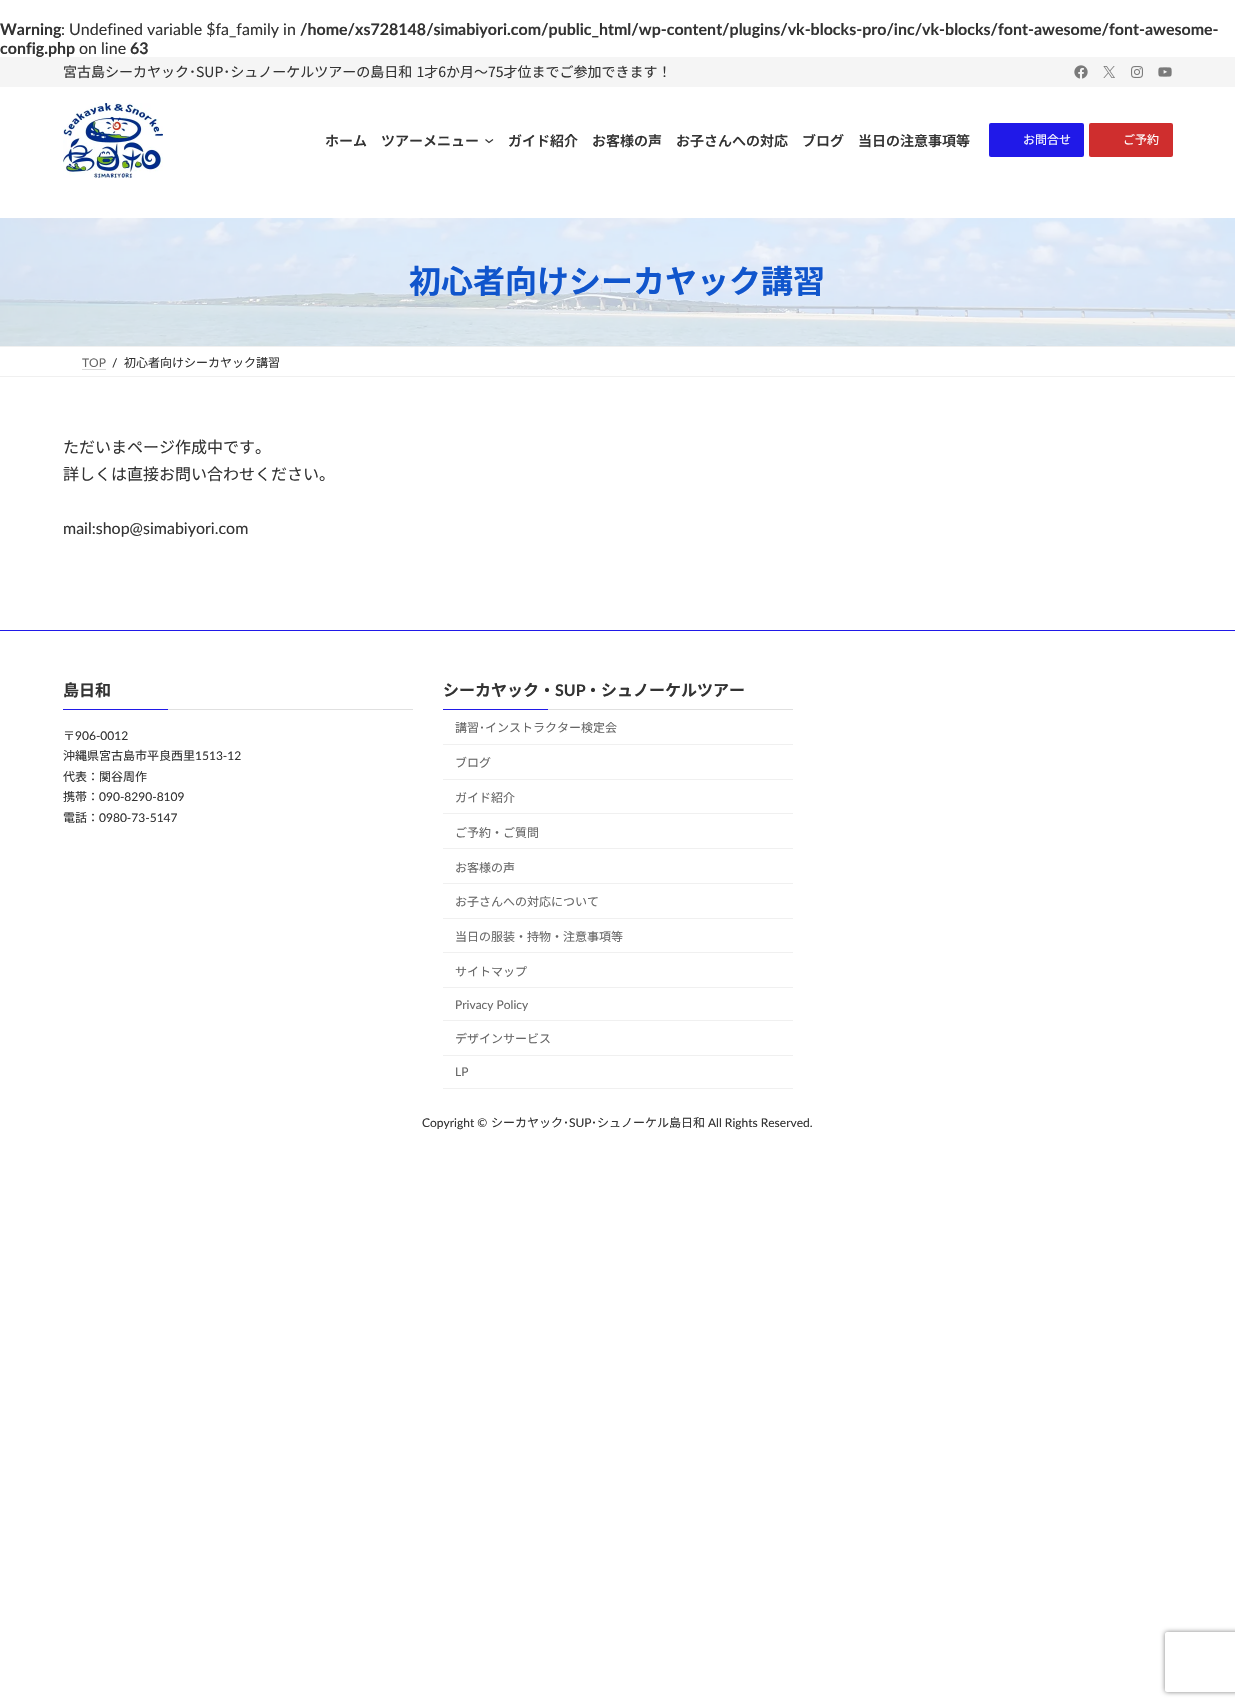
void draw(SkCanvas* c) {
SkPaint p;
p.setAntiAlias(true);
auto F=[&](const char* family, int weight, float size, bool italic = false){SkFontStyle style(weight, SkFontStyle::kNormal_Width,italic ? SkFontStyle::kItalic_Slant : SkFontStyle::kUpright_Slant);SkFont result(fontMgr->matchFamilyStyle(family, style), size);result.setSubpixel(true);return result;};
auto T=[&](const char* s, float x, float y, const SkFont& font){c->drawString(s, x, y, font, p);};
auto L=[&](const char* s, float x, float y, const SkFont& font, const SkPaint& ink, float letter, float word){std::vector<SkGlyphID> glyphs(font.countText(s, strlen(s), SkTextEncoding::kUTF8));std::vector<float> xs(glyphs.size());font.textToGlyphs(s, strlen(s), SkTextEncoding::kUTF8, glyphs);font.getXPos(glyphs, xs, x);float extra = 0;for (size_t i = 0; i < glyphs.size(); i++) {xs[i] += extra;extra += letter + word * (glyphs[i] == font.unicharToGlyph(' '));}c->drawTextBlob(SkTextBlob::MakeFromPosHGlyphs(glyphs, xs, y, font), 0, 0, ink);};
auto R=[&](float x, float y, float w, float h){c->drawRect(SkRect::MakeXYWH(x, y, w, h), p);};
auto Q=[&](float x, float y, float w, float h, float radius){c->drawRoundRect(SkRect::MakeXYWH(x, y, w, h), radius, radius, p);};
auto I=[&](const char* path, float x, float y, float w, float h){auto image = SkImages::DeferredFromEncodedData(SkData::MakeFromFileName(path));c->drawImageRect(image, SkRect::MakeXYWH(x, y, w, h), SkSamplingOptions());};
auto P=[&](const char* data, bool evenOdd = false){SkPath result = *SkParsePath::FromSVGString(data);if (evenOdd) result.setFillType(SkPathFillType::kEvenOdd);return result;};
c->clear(0xffffffff);
auto f1 = F("Lato",700,16);
p.setColor(0xff333333);
T("Warning",0,35,f1);
auto f2 = F("Lato",400,16);
T(": Undefined variable $fa_family in",61,35,f2);
T("/home/xs728148/simabiyori.com/public_html/wp-content/plugins/vk-blocks-pro/inc/vk-blocks/font-awesome/font-awesome-",300,35,f1);
T("config.php",0,54,f1);
T("on line",79,54,f2);
T("63",130,54,f1);
p.setColor(0xfff5f5f5);
R(0,57,1235,30);
auto f3 = F("Noto Sans JP",400,14);
p.setColor(0xff333333);
L("宮古島シーカヤック･SUP･シュノーケルツアーの島日和 1才6か月～75才位までご参加できます！",63,77,f3,p,0,1);
I("1.png",1074,65,14,14);
I("2.png",1103,66,12,12);
I("3.png",1131,66,12,12);
I("4.png",1158,67,14,10);
I("5.png",63,103,100,75);
auto f4 = F("Noto Sans JP",600,14);
T("ホーム",325,146,f4);
T("ツアーメニュー",381,146,f4);
p.setStroke(true);
p.setStrokeWidth(1.2);
c->drawPath(P("M485.5 139.5l3.5 3l4-3"),p);
p.setStroke(false);
T("ガイド紹介",508,146,f4);
T("お客様の声",592,146,f4);
T("お子さんへの対応",676,146,f4);
T("ブログ",802,146,f4);
T("当日の注意事項等",858,146,f4);
p.setColor(0xff2019e8);
Q(989,123,95,34,2);
auto f5 = F("Noto Sans JP",400,12);
p.setColor(0xffffffff);
T("お問合せ",1023,144,f5);
p.setColor(0xffcf2e2e);
Q(1089,123,84,34,2);
p.setColor(0xffffffff);
T("ご予約",1123,144,f5);
I("6.png",0,218,1235,128);
auto f6 = F("Noto Sans JP",700,32);
p.setColor(0xff1055cc);
T("初心者向けシーカヤック講習",409,293,f6);
p.setColor(0xfff0f0f0);
R(0,346,1235,1);
R(0,376,1235,1);
auto f7 = F("Lato",400,12);
p.setColor(0xff666666);
T("TOP",82,367,f7);
p.setStroke(true);
p.setStrokeWidth(1);
p.setColor(0xffb3b3b3);
p.setPathEffect(SkDashPathEffect::Make({{1,1}}, 0));
c->drawPath(P("M82.5 369.5h23.5"),p);
p.setPathEffect(nullptr);
p.setStroke(false);
p.setColor(0xff333333);
T("/",112,367,f7);
T("初心者向けシーカヤック講習",124,367,f5);
auto f8 = F("Noto Sans JP",400,16);
T("ただいまページ作成中です。",63,453,f8);
T("詳しくは直接お問い合わせください。",63,480,f8);
T("mail:shop@simabiyori.com",63,534,f2);
p.setColor(0xff2019e8);
R(0,630,1235,1);
p.setColor(0xffe0e0e0);
R(168,709,245,1);
auto f9 = F("Noto Sans JP",700,16);
p.setColor(0xff333333);
T("島日和",63,696,f9);
p.setColor(0xff2019e8);
R(63,709,105,1);
p.setColor(0xff333333);
T("〒",63,740,f5);
T("906-0012",75,740,f7);
T("沖縄県宮古島市平良西里",63,760,f5);
T("1513-12",195,760,f7);
T("代表：関谷周作",63,781,f5);
T("携帯：",63,801,f5);
T("090-8290-8109",99,801,f7);
T("電話：",63,822,f5);
T("0980-73-5147",99,822,f7);
p.setColor(0xffe0e0e0);
R(548,709,245,1);
p.setColor(0xff333333);
T("シーカヤック・",443,696,f9);
T("SUP",555,696,f1);
T("・シュノーケルツアー",585,696,f9);
p.setColor(0xff2019e8);
R(443,709,105,1);
p.setColor(0xfff0f0f0);
R(443,744,350,1);
p.setColor(0xff666666);
T("講習･インストラクター検定会",455,732,f5);
p.setColor(0xfff0f0f0);
R(443,779,350,1);
p.setColor(0xff666666);
T("ブログ",455,767,f5);
p.setColor(0xfff0f0f0);
R(443,813,350,1);
p.setColor(0xff666666);
T("ガイド紹介",455,802,f5);
p.setColor(0xfff0f0f0);
R(443,848,350,1);
p.setColor(0xff666666);
T("ご予約・ご質問",455,837,f5);
p.setColor(0xfff0f0f0);
R(443,883,350,1);
p.setColor(0xff666666);
T("お客様の声",455,872,f5);
p.setColor(0xfff0f0f0);
R(443,918,350,1);
p.setColor(0xff666666);
T("お子さんへの対応について",455,906,f5);
p.setColor(0xfff0f0f0);
R(443,952,350,1);
p.setColor(0xff666666);
T("当日の服装・持物・注意事項等",455,941,f5);
p.setColor(0xfff0f0f0);
R(443,987,350,1);
p.setColor(0xff666666);
T("サイトマップ",455,976,f5);
p.setColor(0xfff0f0f0);
R(443,1020,350,1);
p.setColor(0xff666666);
T("Privacy Policy",455,1009,f7);
p.setColor(0xfff0f0f0);
R(443,1055,350,1);
p.setColor(0xff666666);
T("デザインサービス",455,1043,f5);
p.setColor(0xfff0f0f0);
R(443,1088,350,1);
p.setColor(0xff666666);
T("LP",455,1076,f7);
p.setColor(0xff333333);
T("Copyright ©",422,1127,f7);
T("シーカヤック･",491,1127,f5);
T("SUP",569,1127,f7);
T("･シュノーケル島日和",591,1127,f5);
T("All Rights Reserved.",708,1127,f7);
c->save();
c->clipPath(P("M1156 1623h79v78h-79zm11 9h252c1 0 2 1 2 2v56c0 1-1 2-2 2h-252c-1 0-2-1-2-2v-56c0-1 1-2 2-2z",true),true);
p.setColor(0xff808080);
p.setMaskFilter(SkMaskFilter::MakeBlur(kNormal_SkBlurStyle, 2.5));
c->drawRoundRect(SkRect::MakeXYWH(1165,1632,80,60),2,2,p);
p.setMaskFilter(nullptr);
c->restore();
}
